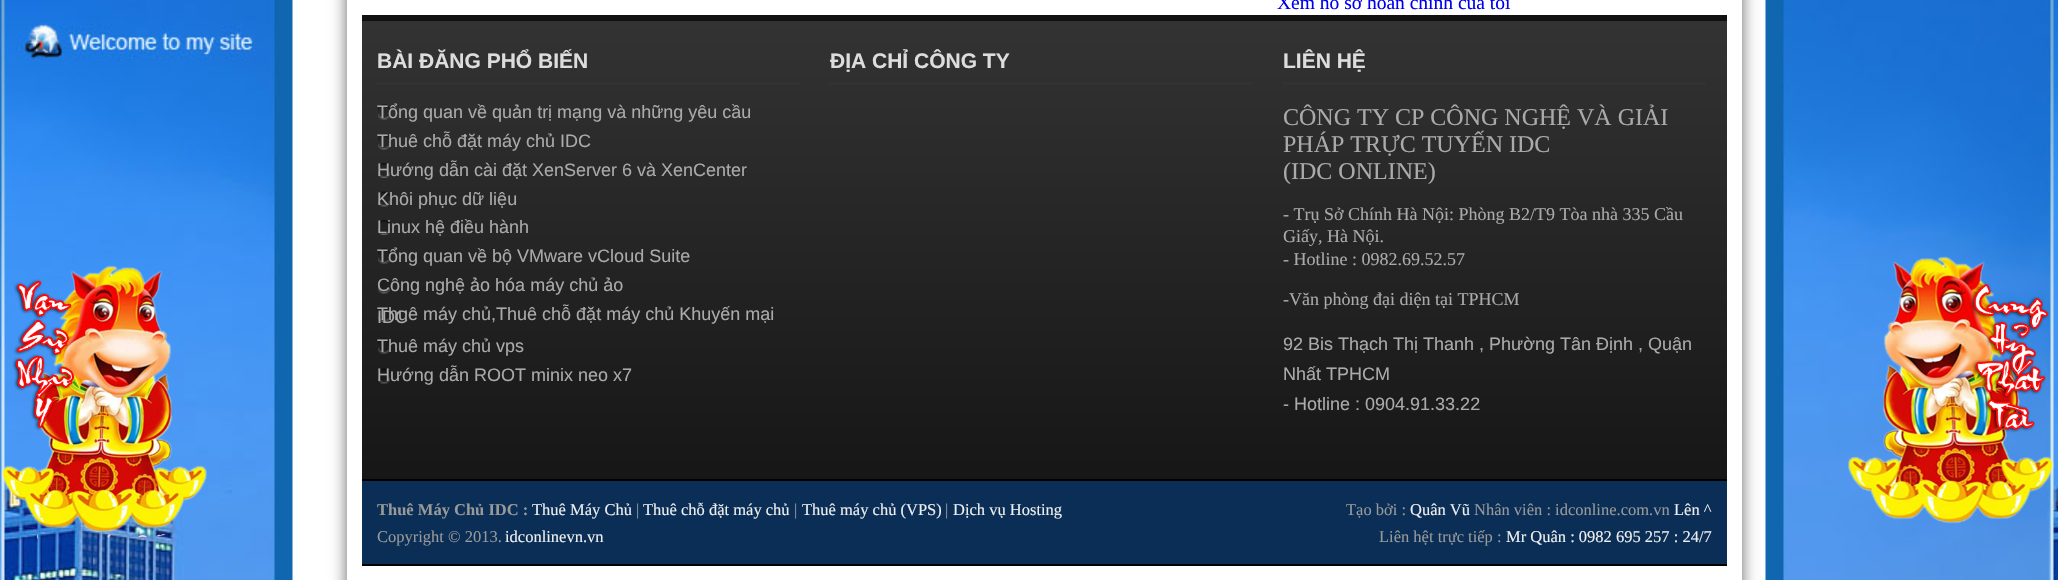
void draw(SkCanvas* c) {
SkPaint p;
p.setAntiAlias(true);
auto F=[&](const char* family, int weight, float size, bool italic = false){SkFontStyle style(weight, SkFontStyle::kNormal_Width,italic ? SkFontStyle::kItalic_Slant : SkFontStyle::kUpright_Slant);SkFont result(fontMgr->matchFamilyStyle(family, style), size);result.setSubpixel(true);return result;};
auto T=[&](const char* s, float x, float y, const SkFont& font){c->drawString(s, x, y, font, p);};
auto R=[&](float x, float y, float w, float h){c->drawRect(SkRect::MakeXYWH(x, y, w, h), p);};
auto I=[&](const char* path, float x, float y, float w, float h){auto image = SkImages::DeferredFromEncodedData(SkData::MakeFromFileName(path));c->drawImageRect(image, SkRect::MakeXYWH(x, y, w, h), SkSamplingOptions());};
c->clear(0xffffffff);
I("1.png",0,0,2058,580);
I("2.png",1,265,207,275);
p.setColor(0xff666666);
p.setMaskFilter(SkMaskFilter::MakeBlur(kNormal_SkBlurStyle, 7.5));
c->drawRect(SkRect::MakeXYWH(347,-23,1395,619),p);
p.setMaskFilter(nullptr);
p.setColor(0xffffffff);
R(347,0,1395,580);
auto f1 = F("Liberation Serif",400,19.5);
p.setColor(0xff0000ee);
T("Xem hồ sơ hoàn chỉnh của tôi",1277,9,f1);
p.setColor(0xff111111);
R(362,15,1365,6);
{
const SkColor colors[] = {0xff333333,0xff111111};
const float stops[] = {0,1};
const SkPoint ends[] = {{1044,21}, {1044,564}};
p.setShader(SkGradientShader::MakeLinear(ends, colors, stops, 2, SkTileMode::kClamp));
p.setAlpha(255);
}
R(362,21,1365,458);
p.setShader(nullptr);
p.setColor(0xff000000);
R(362,564,1365,2);
p.setColor(0xff323232);
R(376,82,424,3);
auto f2 = F("Liberation Sans",700,21);
p.setColor(0xffdddddd);
T("BÀI ĐĂNG PHỔ BIẾN",377,68,f2);
I("3.png",378,104,12,16);
auto f3 = F("Liberation Sans",400,18);
p.setColor(0xffaaaaaa);
T("Tổng quan về quản trị mạng và những yêu cầu",377,118,f3);
I("4.png",378,134,12,16);
T("Thuê chỗ đặt máy chủ IDC",377,147,f3);
I("5.png",378,163,12,15);
T("Hướng dẫn cài đặt XenServer 6 và XenCenter",377,176,f3);
I("6.png",378,191,12,16);
T("Khôi phục dữ liệu",377,205,f3);
I("7.png",378,220,12,15);
T("Linux hệ điều hành",377,233,f3);
I("8.png",378,248,12,16);
T("Tổng quan về bộ VMware vCloud Suite",377,262,f3);
I("9.png",378,278,12,16);
T("Công nghệ ảo hóa máy chủ ảo",377,291,f3);
I("10.png",378,307,12,15);
T("Thuê máy chủ,Thuê chỗ đặt máy chủ Khuyến mại",377,320,f3);
T("IDC",377,323,f3);
I("11.png",378,338,12,16);
T("Thuê máy chủ vps",377,352,f3);
I("12.png",378,368,12,16);
T("Hướng dẫn ROOT minix neo x7",377,381,f3);
p.setColor(0xff323232);
R(829,82,424,3);
p.setColor(0xffdddddd);
T("ĐỊA CHỈ CÔNG TY",830,68,f2);
p.setColor(0xff323232);
R(1282,82,424,3);
p.setColor(0xffdddddd);
T("LIÊN HỆ",1283,68,f2);
auto f4 = F("Liberation Serif",400,24);
p.setColor(0xffaaaaaa);
T("CÔNG TY CP CÔNG NGHỆ VÀ GIẢI",1283,125,f4);
T("PHÁP TRỰC TUYẾN IDC",1283,152,f4);
T("(IDC ONLINE)",1283,179,f4);
auto f5 = F("Liberation Serif",400,18);
T("- Trụ Sở Chính Hà Nội: Phòng B2/T9 Tòa nhà 335 Cầu",1283,220,f5);
T("Giấy, Hà Nội.",1283,242,f5);
T("- Hotline : 0982.69.52.57",1283,265,f5);
T("-Văn phòng đại diện tại TPHCM",1283,305,f5);
T("92 Bis Thạch Thị Thanh , Phường Tân Định , Quận",1283,350,f3);
T("Nhất TPHCM",1283,380,f3);
T("- Hotline : 0904.91.33.22",1283,410,f3);
p.setColor(0xff0a2e56);
R(362,481,1365,83);
p.setColor(0xff000000);
R(362,479,1365,2);
auto f6 = F("Liberation Serif",700,16.5);
p.setColor(0xff999999);
T("Thuê Máy Chủ IDC :",377,515,f6);
auto f7 = F("Liberation Serif",400,16.5);
p.setColor(0xffeeeeee);
T("Thuê Máy Chủ",532,515,f7);
p.setColor(0xff999999);
T("|",636,515,f7);
p.setColor(0xffeeeeee);
T("Thuê chỗ đặt máy chủ",643,515,f7);
p.setColor(0xff999999);
T("|",794,515,f7);
p.setColor(0xffeeeeee);
T("Thuê máy chủ (VPS)",802,515,f7);
p.setColor(0xff999999);
T("|",945,515,f7);
p.setColor(0xffeeeeee);
T("Dịch vụ Hosting",953,515,f7);
p.setColor(0xff999999);
T("Copyright © 2013.",377,542,f7);
p.setColor(0xffeeeeee);
T("idconlinevn.vn",505,542,f7);
p.setColor(0xff999999);
T("Tạo bởi :",1346,515,f7);
p.setColor(0xffeeeeee);
T("Quân Vũ",1410,515,f7);
p.setColor(0xff999999);
T("Nhân viên : idconline.com.vn",1474,515,f7);
p.setColor(0xffeeeeee);
T("Lên ^",1674,515,f7);
p.setColor(0xff999999);
T("Liên hệt trực tiếp :",1379,542,f7);
p.setColor(0xffeeeeee);
T("Mr Quân : 0982 695 257 : 24/7",1506,542,f7);
I("13.png",1848,256,206,268);
}
